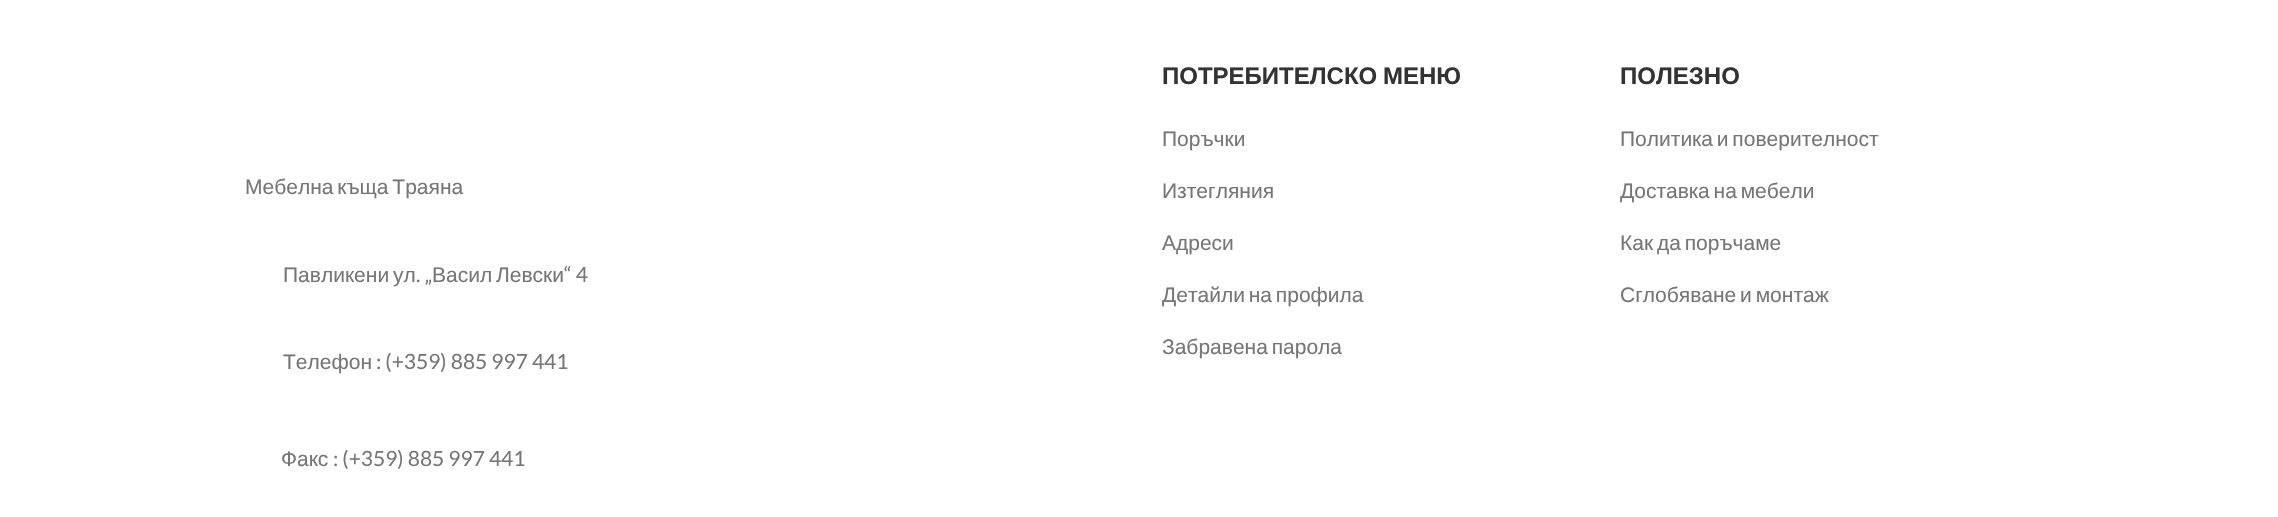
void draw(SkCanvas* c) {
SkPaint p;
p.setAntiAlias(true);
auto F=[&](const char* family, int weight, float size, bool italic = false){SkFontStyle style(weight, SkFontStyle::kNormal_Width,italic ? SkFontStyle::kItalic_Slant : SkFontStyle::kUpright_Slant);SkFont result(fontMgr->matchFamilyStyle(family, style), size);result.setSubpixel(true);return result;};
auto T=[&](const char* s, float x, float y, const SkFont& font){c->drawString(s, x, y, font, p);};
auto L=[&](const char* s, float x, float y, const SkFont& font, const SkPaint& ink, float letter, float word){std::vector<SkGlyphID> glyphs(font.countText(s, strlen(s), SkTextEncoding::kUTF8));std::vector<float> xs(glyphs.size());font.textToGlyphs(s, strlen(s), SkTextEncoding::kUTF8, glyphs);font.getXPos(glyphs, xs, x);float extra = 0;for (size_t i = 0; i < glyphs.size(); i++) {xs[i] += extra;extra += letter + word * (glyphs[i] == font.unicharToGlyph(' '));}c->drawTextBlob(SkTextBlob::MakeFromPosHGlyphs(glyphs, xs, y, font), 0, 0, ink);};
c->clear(0xffffffff);
auto f1 = F("Liberation Sans",400,21);
p.setColor(0xff767676);
L("Мебелна къща Траяна",245,194,f1,p,0,-2);
T("Павликени",283,282,f1);
T("ул",393,282,f1);
auto f2 = F("Lato",400,21);
T(". „",416,282,f2);
T("Васил",432,282,f1);
T("Левски",496,282,f1);
T("“ 4",564,282,f2);
T("Телефон",283,369,f1);
T(": (+359) 885 997 441",376,369,f2);
T("Факс",281,466,f1);
T(": (+359) 885 997 441",333,466,f2);
auto f3 = F("Liberation Sans",700,24);
p.setColor(0xff333333);
L("ПОТРЕБИТЕЛСКО МЕНЮ",1162,84,f3,p,0,-1);
p.setColor(0xff767676);
T("Поръчки",1162,146,f1);
T("Изтегляния",1162,198,f1);
T("Адреси",1162,250,f1);
L("Детайли на профила",1162,302,f1,p,0,-2);
L("Забравена парола",1162,354,f1,p,0,-2);
p.setColor(0xff333333);
T("ПОЛЕЗНО",1620,84,f3);
p.setColor(0xff767676);
L("Политика и поверителност",1620,146,f1,p,0,-2);
L("Доставка на мебели",1620,198,f1,p,0,-2);
L("Как да поръчаме",1620,250,f1,p,0,-2);
L("Сглобяване и монтаж",1620,302,f1,p,0,-2);
}
